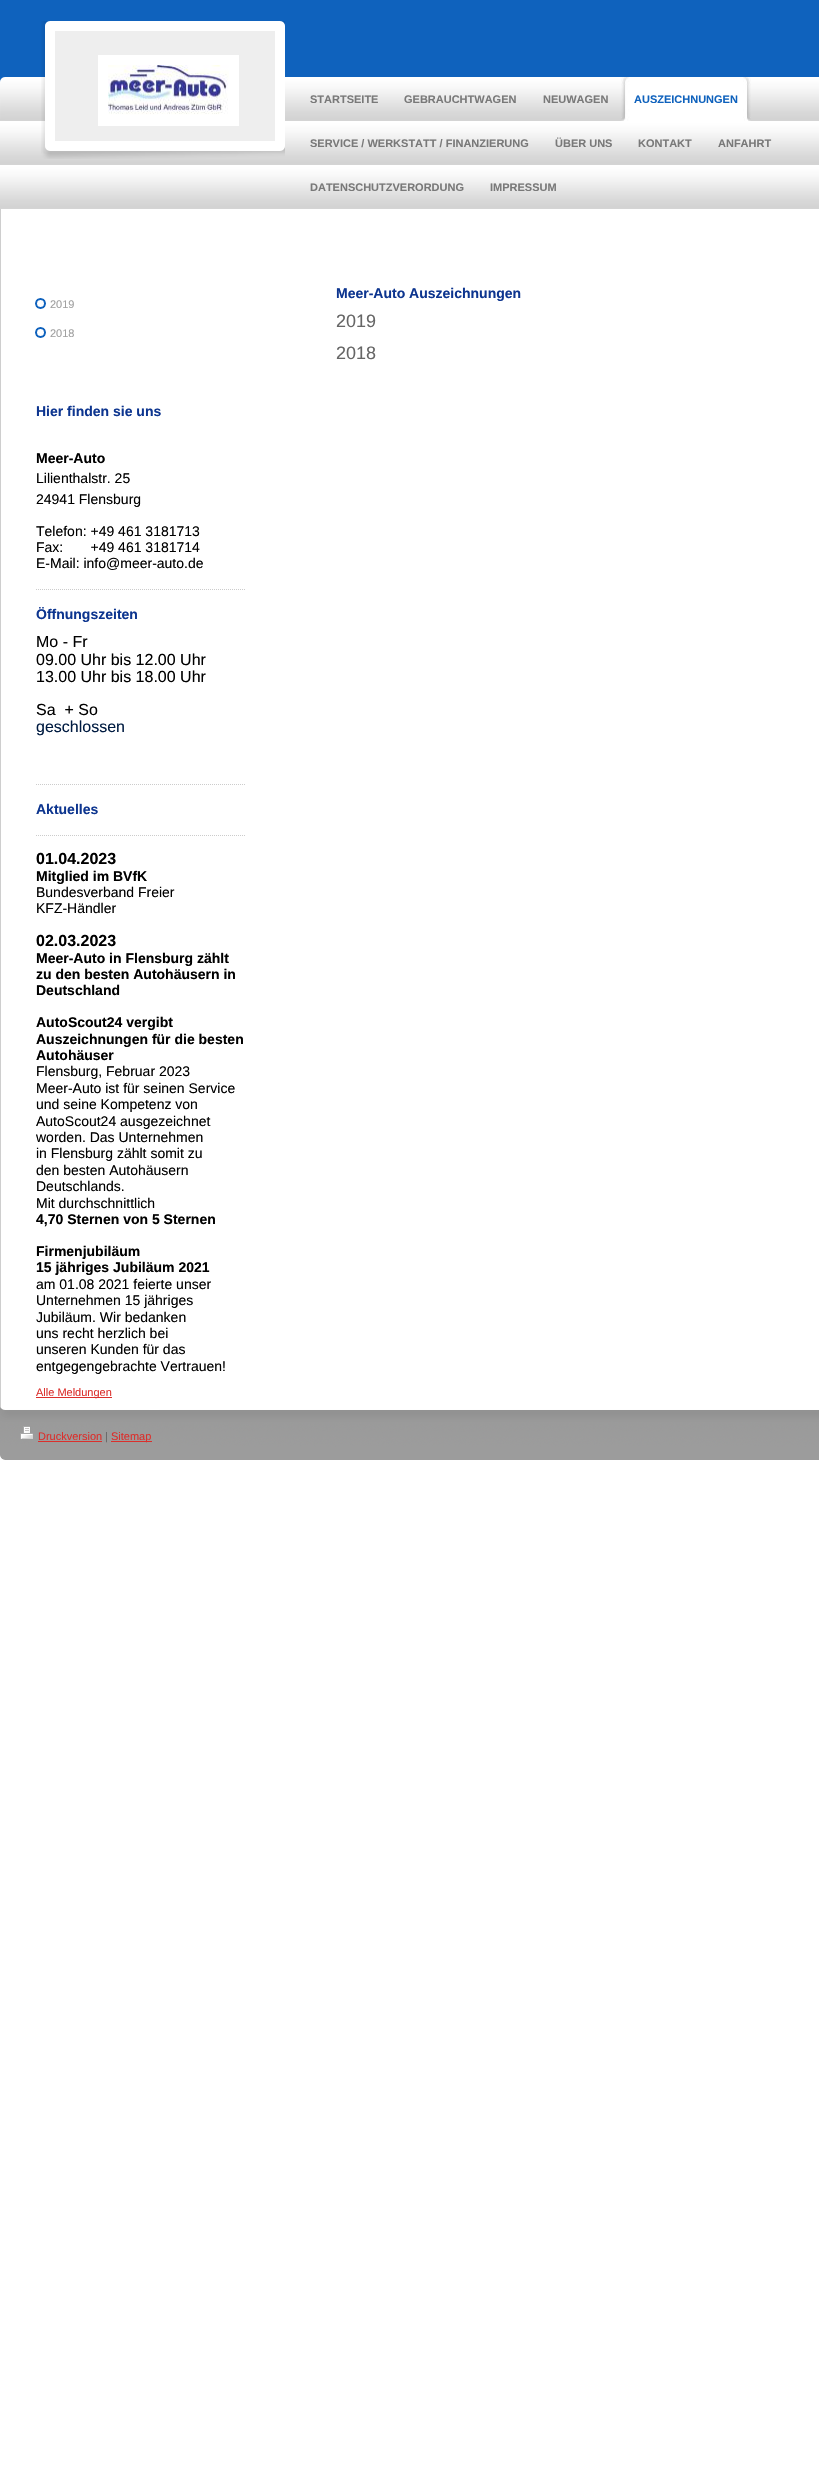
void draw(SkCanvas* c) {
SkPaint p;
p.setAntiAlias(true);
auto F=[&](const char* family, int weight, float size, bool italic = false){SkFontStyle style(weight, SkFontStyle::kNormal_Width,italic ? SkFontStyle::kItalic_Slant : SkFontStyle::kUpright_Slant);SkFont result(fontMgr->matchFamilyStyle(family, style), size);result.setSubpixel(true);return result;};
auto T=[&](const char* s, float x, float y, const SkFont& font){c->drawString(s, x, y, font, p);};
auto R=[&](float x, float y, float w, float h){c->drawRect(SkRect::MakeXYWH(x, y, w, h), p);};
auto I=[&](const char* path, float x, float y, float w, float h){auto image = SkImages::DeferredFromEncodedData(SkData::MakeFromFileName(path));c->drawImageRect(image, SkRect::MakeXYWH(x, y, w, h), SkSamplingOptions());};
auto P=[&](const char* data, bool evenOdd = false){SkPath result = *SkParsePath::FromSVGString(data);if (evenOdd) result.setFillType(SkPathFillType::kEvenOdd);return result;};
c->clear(0xffffffff);
p.setColor(0xff0f62bd);
R(0,0,819,77);
I("3.png",0,77,819,132);
I("1.png",41,21,244,138);
p.setColor(0xffeeeeee);
R(55,31,220,110);
p.setStroke(true);
p.setStrokeWidth(10);
p.setColor(0xffffffff);
c->drawRect(SkRect::MakeXYWH(103,60,131,61),p);
I("2.png",108,65,121,51);
p.setStroke(false);
p.setColor(0xff0f62bd);
R(0,77,5,5);
I("4.png",0,77,5,44);
I("5.png",297,77,94,44);
auto f1 = F("Liberation Sans",700,11);
p.setColor(0xff797979);
T("STARTSEITE",310,103,f1);
I("6.png",391,77,139,44);
T("GEBRAUCHTWAGEN",404,103,f1);
I("7.png",530,77,91,44);
T("NEUWAGEN",543,103,f1);
I("8.png",621,77,122,44);
I("9.png",743,77,8,44);
p.setColor(0xff0f62bd);
T("AUSZEICHNUNGEN",634,103,f1);
I("10.png",297,121,245,44);
p.setColor(0xff797979);
T("SERVICE / WERKSTATT / FINANZIERUNG",310,147,f1);
I("11.png",542,121,83,44);
T("ÜBER UNS",555,147,f1);
I("12.png",625,121,80,44);
T("KONTAKT",638,147,f1);
I("13.png",705,121,79,44);
T("ANFAHRT",718,147,f1);
I("14.png",297,165,180,44);
T("DATENSCHUTZVERORDUNG",310,191,f1);
I("15.png",477,165,93,44);
T("IMPRESSUM",490,191,f1);
p.setColor(0xffcecece);
R(0,209,1,1197);
p.setColor(0xff0f62bd);
R(35,298,11,40);
I("16.png",31,293,240,29);
auto f2 = F("Liberation Sans",400,11);
p.setColor(0xffa0a0a0);
T("2019",50,308,f2);
I("16.png",31,322,240,29);
T("2018",50,337,f2);
auto f3 = F("Liberation Sans",700,14);
p.setColor(0xff0d358f);
T("Hier finden sie uns",36,416,f3);
p.setColor(0xff000000);
T("Meer-Auto",36,463,f3);
auto f4 = F("Liberation Sans",400,14);
T("Lilienthalstr. 25",36,483,f4);
T("24941 Flensburg",36,504,f4);
T("Telefon: +49 461 3181713",36,536,f4);
T("Fax:       +49 461 3181714",36,552,f4);
T("E-Mail: info@meer-auto.de",36,568,f4);
p.setStroke(true);
p.setStrokeWidth(1);
p.setColor(0xffcccccc);
p.setPathEffect(SkDashPathEffect::Make({{1,1}}, 0));
c->drawPath(P("M36 589.5h210"),p);
p.setPathEffect(nullptr);
p.setStroke(false);
p.setColor(0xff0d358f);
T("Öffnungszeiten",36,619,f3);
auto f5 = F("Liberation Sans",400,16);
p.setColor(0xff000000);
T("Mo - Fr",36,647,f5);
T("09.00 Uhr bis 12.00 Uhr",36,665,f5);
T("13.00 Uhr bis 18.00 Uhr",36,682,f5);
T("Sa  + So",36,715,f5);
p.setColor(0xff001b41);
T("geschlossen",36,732,f5);
p.setStroke(true);
p.setColor(0xffcccccc);
p.setPathEffect(SkDashPathEffect::Make({{1,1}}, 0));
c->drawPath(P("M36 784.5h210"),p);
p.setPathEffect(nullptr);
p.setStroke(false);
p.setColor(0xff0d358f);
T("Aktuelles",36,814,f3);
p.setStroke(true);
p.setColor(0xffcccccc);
p.setPathEffect(SkDashPathEffect::Make({{1,1}}, 0));
c->drawPath(P("M36 835.5h210"),p);
p.setPathEffect(nullptr);
auto f6 = F("Liberation Sans",700,16);
p.setStroke(false);
p.setColor(0xff000000);
T("01.04.2023",36,864,f6);
T("Mitglied im BVfK",36,881,f3);
T("Bundesverband Freier",36,897,f4);
T("KFZ-Händler",36,913,f4);
T("02.03.2023",36,946,f6);
T("Meer-Auto in Flensburg zählt",36,963,f3);
T("zu den besten Autohäusern in",36,979,f3);
T("Deutschland",36,995,f3);
T("AutoScout24 vergibt",36,1027,f3);
T("Auszeichnungen für die besten",36,1044,f3);
T("Autohäuser",36,1060,f3);
T("Flensburg, Februar 2023",36,1076,f4);
T("Meer-Auto ist für seinen Service",36,1093,f4);
T("und seine Kompetenz von",36,1109,f4);
T("AutoScout24 ausgezeichnet",36,1126,f4);
T("worden. Das Unternehmen",36,1142,f4);
T("in Flensburg zählt somit zu",36,1158,f4);
T("den besten Autohäusern",36,1175,f4);
T("Deutschlands.",36,1191,f4);
T("Mit durchschnittlich",36,1208,f4);
T("4,70 Sternen von 5 Sternen",36,1224,f3);
T("Firmenjubiläum",36,1256,f3);
T("15 jähriges Jubiläum 2021",36,1272,f3);
T("am 01.08 2021 feierte unser",36,1289,f4);
T("Unternehmen 15 jähriges",36,1305,f4);
T("Jubiläum. Wir bedanken",36,1322,f4);
T("uns recht herzlich bei",36,1338,f4);
T("unseren Kunden für das",36,1354,f4);
T("entgegengebrachte Vertrauen!",36,1371,f4);
p.setColor(0xffdb2f2c);
R(36,1397,76,1);
T("Alle Meldungen",36,1396,f2);
p.setColor(0xff0d358f);
T("Meer-Auto Auszeichnungen",336,298,f3);
auto f7 = F("Liberation Sans",400,18);
p.setColor(0xff666666);
T("2019",336,327,f7);
T("2018",336,359,f7);
I("17.png",0,1406,819,54);
I("18.png",20,1426,13,13);
p.setColor(0xffdb2f2c);
T("Druckversion",38,1440,f2);
R(38,1441,64,1);
p.setColor(0xff666666);
T("|",105,1440,f2);
p.setColor(0xffdb2f2c);
R(111,1441,41,1);
T("Sitemap",111,1440,f2);
}
